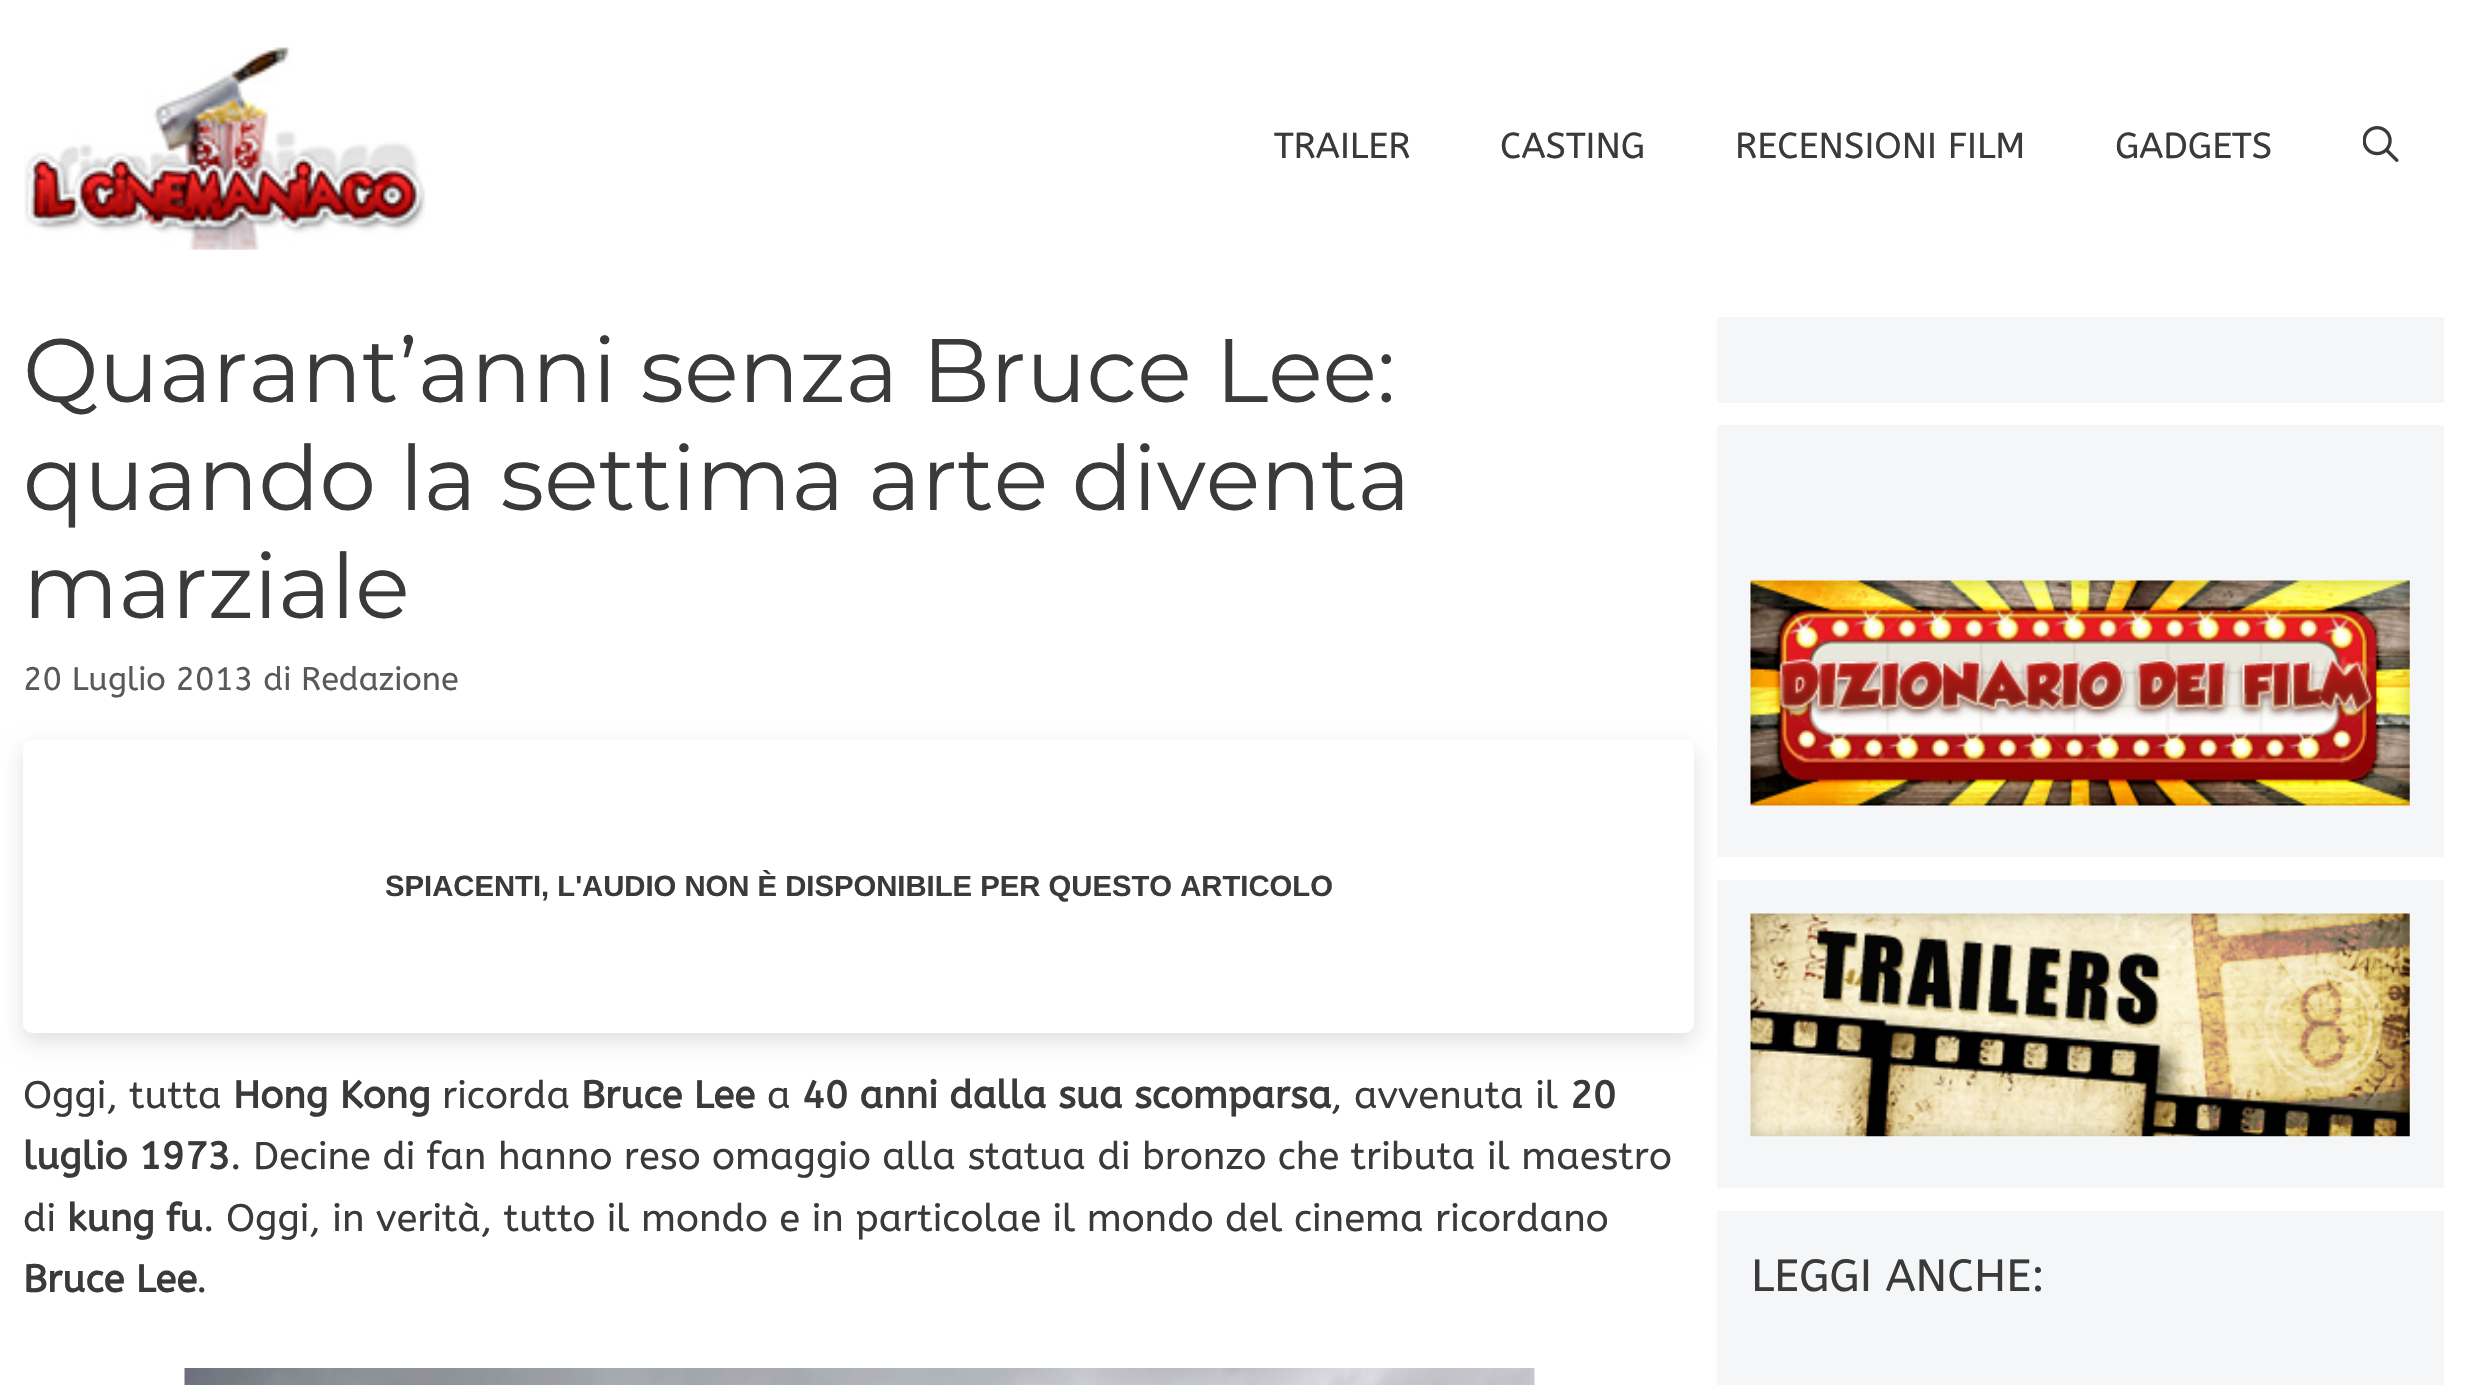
void draw(SkCanvas* c) {
SkPaint p;
p.setAntiAlias(true);
auto F=[&](const char* family, int weight, float size, bool italic = false){SkFontStyle style(weight, SkFontStyle::kNormal_Width,italic ? SkFontStyle::kItalic_Slant : SkFontStyle::kUpright_Slant);SkFont result(fontMgr->matchFamilyStyle(family, style), size);result.setSubpixel(true);return result;};
auto T=[&](const char* s, float x, float y, const SkFont& font){c->drawString(s, x, y, font, p);};
auto R=[&](float x, float y, float w, float h){c->drawRect(SkRect::MakeXYWH(x, y, w, h), p);};
auto Q=[&](float x, float y, float w, float h, float radius){c->drawRoundRect(SkRect::MakeXYWH(x, y, w, h), radius, radius, p);};
auto I=[&](const char* path, float x, float y, float w, float h){auto image = SkImages::DeferredFromEncodedData(SkData::MakeFromFileName(path));c->drawImageRect(image, SkRect::MakeXYWH(x, y, w, h), SkSamplingOptions());};
c->clear(0xffffffff);
I("1.png",24,47,402,203);
auto f1 = F("ABeeZee",400,36);
p.setColor(0xff3a3a3a);
T("TRAILER",1274,158,f1);
T("CASTING",1500,158,f1);
T("RECENSIONI FILM",1735,158,f1);
T("GADGETS",2115,158,f1);
I("2.png",2363,126,36,36);
auto f2 = F("Montserrat",400,90);
T("Quarant’anni senza Bruce Lee:",23,402,f2);
T("quando la settima arte diventa",23,510,f2);
T("marziale",23,618,f2);
auto f3 = F("ABeeZee",400,32.5);
p.setColor(0xff595959);
T("20 Luglio 2013 di Redazione",23,690,f3);
p.setColor(0xfff4f6f7);
R(1717,425,727,432);
R(1717,880,727,308);
p.setColor(0x1f000000);
p.setMaskFilter(SkMaskFilter::MakeBlur(kNormal_SkBlurStyle, 11));
c->drawRoundRect(SkRect::MakeXYWH(23,749,1671,293),9,9,p);
p.setMaskFilter(nullptr);
p.setColor(0xffffffff);
Q(23,740,1671,293,9);
auto f4 = F("Liberation Sans",700,29.25);
p.setColor(0xff3a3a3a);
T("SPIACENTI, L'AUDIO NON È DISPONIBILE PER QUESTO ARTICOLO",385,896,f4);
auto f5 = F("ABeeZee",400,38.25);
T("Oggi, tutta",23,1108,f5);
auto f6 = F("ABeeZee",700,38.25);
T("Hong Kong",233,1108,f6);
T("ricorda",442,1108,f5);
T("Bruce Lee",581,1108,f6);
T("a",767,1108,f5);
T("40 anni dalla sua scomparsa",802,1108,f6);
T(", avvenuta il",1331,1108,f5);
T("20",1570,1108,f6);
T("luglio 1973",23,1169,f6);
T(". Decine di fan hanno reso omaggio alla statua di bronzo che tributa il maestro",230,1169,f5);
T("di",23,1231,f5);
T("kung fu",67,1231,f6);
T(". Oggi, in verità, tutto il mondo e in particolae il mondo del cinema ricordano",203,1231,f5);
T("Bruce Lee",23,1292,f6);
T(".",196,1292,f5);
I("3.png",184,1368,1351,17);
p.setColor(0xfff4f6f7);
R(1717,317,727,86);
I("4.png",1750,580,660,226);
I("5.png",1750,913,660,224);
R(1717,1211,727,174);
auto f7 = F("ABeeZee",400,45);
p.setColor(0xff3a3a3a);
T("LEGGI ANCHE:",1751,1291,f7);
}
